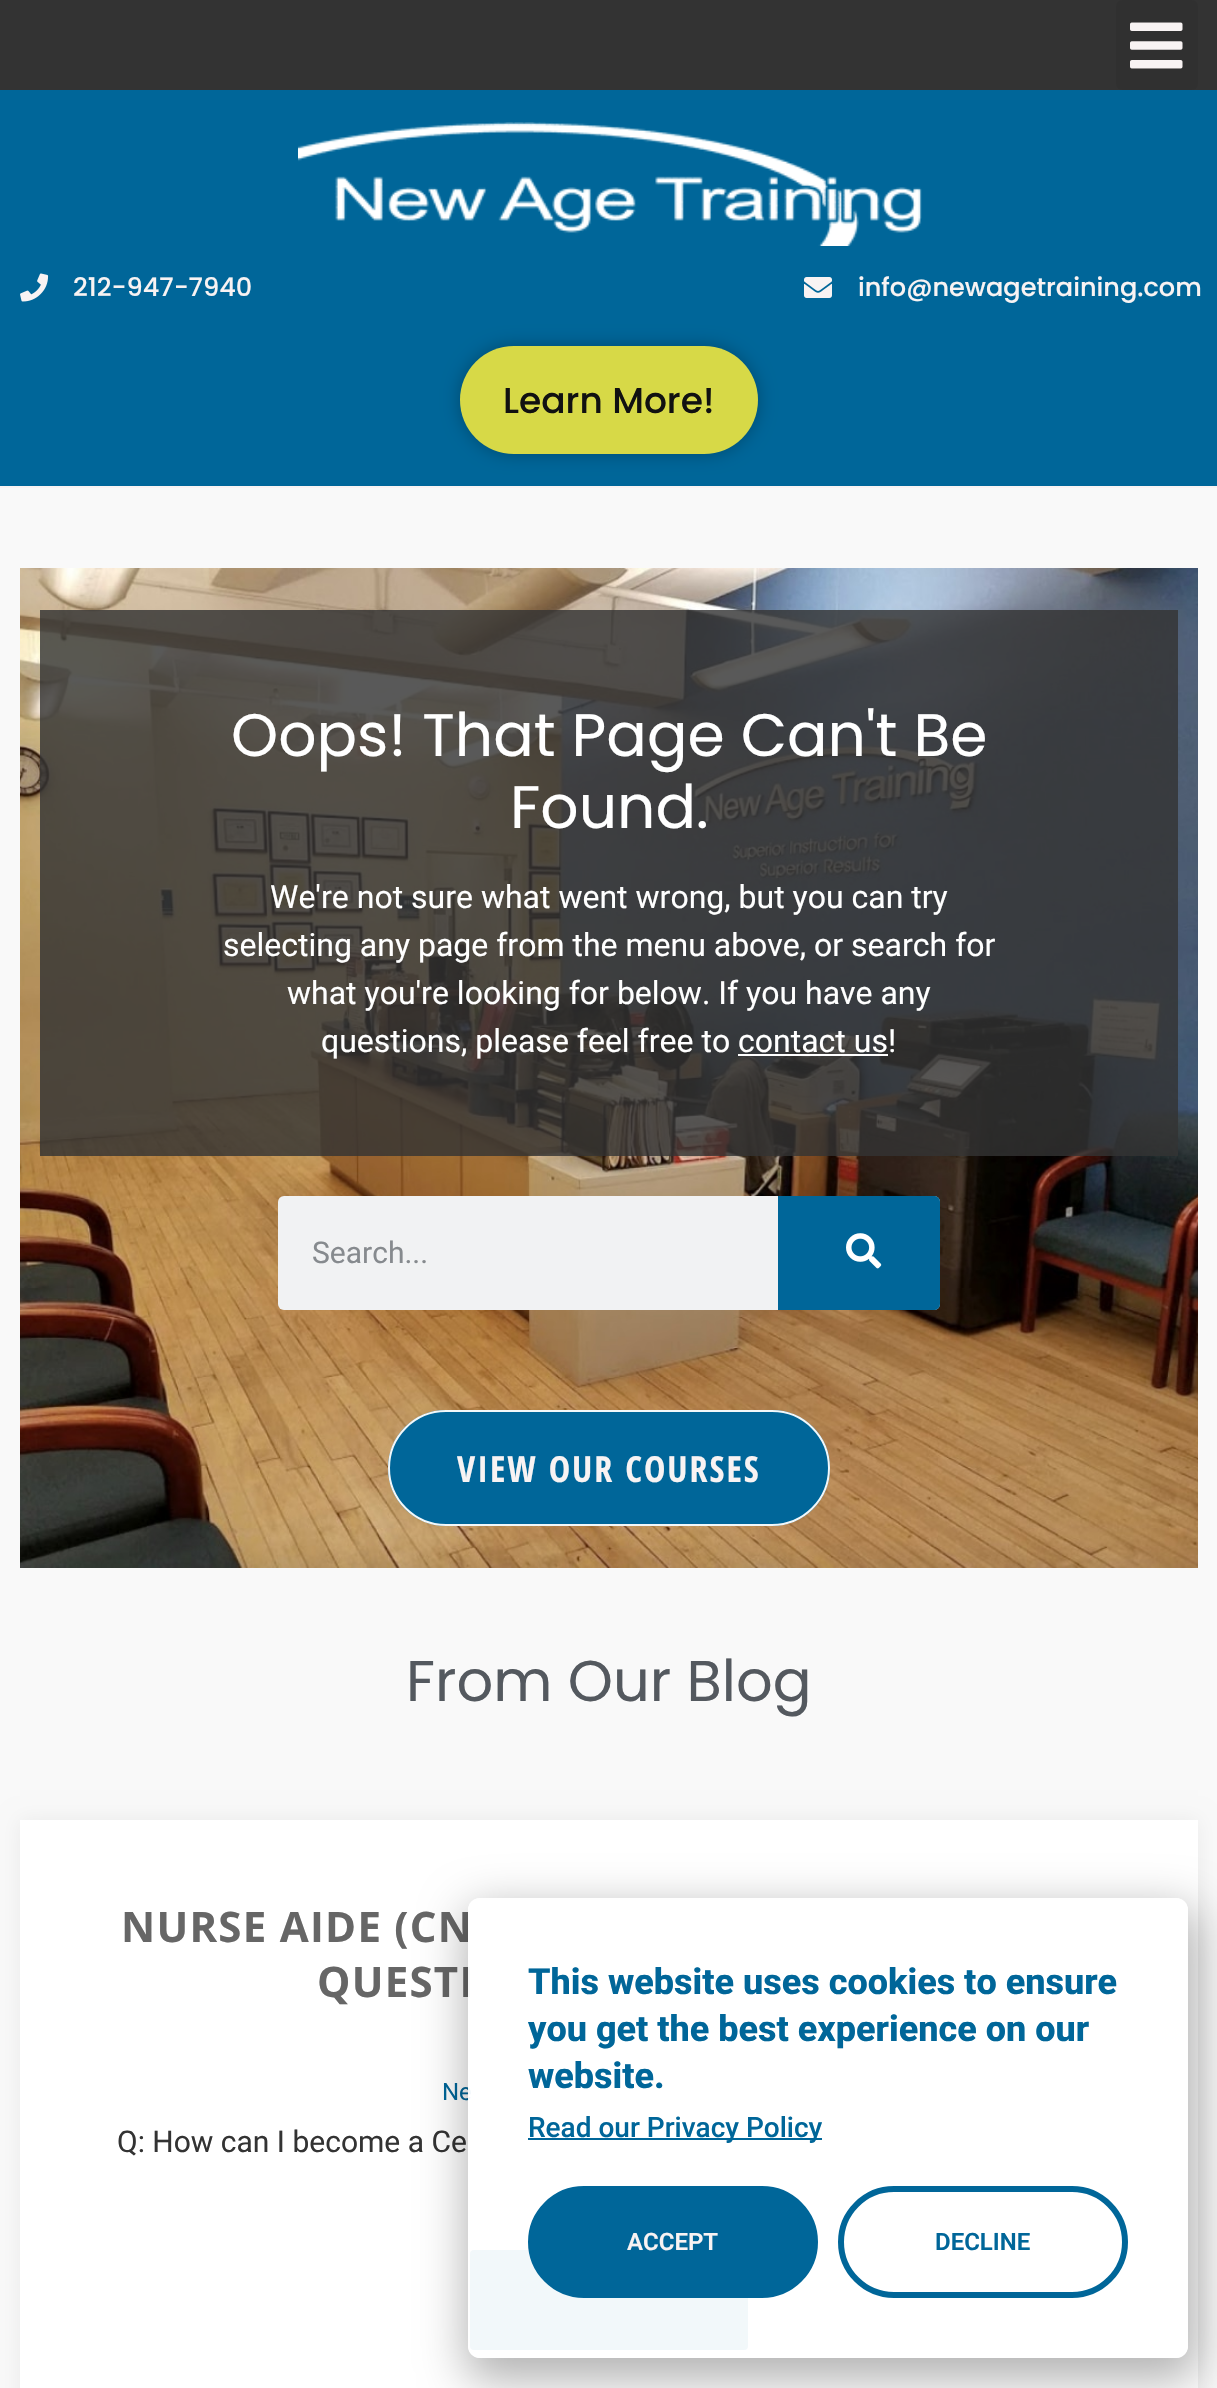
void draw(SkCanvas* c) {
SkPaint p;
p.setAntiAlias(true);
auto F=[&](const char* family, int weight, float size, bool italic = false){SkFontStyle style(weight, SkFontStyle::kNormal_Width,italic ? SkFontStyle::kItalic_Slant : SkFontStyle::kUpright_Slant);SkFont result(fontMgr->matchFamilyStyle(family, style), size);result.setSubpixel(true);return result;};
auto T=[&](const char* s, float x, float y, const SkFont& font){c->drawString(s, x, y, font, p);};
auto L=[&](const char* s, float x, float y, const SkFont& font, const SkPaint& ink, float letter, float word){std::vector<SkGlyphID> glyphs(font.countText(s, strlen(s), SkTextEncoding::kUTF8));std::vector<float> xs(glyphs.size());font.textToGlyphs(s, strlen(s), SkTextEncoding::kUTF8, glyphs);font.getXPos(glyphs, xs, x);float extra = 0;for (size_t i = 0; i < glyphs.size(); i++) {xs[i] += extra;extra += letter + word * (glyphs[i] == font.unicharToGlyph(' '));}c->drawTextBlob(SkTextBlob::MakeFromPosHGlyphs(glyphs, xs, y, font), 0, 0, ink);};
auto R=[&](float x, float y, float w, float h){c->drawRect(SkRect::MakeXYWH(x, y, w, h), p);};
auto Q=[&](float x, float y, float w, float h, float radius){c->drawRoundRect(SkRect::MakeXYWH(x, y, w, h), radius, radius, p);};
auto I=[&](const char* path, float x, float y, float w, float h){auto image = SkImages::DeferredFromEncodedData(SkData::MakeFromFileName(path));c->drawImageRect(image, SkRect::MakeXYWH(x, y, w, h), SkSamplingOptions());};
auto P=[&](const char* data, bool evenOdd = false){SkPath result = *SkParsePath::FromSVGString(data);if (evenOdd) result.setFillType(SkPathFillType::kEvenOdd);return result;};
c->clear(0xfff9f9f9);
p.setColor(0xff333333);
R(0,0,1217,90);
p.setColor(0xff303030);
Q(1116,0,82,90,6);
I("1.png",1130,22,53,47);
p.setColor(0xff006699);
R(0,90,1217,396);
p.setColor(0xfff8f3f3);
R(0,486,1217,2);
I("2.png",298,122,624,124);
I("3.png",20,273,29,29);
auto f1 = F("Poppins",500,25.6);
T("212-947-7940",73,296,f1);
I("4.png",804,277,28,21);
T("info@newagetraining.com",858,296,f1);
p.setColor(0x47000000);
p.setMaskFilter(SkMaskFilter::MakeBlur(kNormal_SkBlurStyle, 9));
c->drawRoundRect(SkRect::MakeXYWH(460,346,298,108),54,54,p);
p.setMaskFilter(nullptr);
p.setColor(0xffd7d947);
Q(460,346,298,108,54);
auto f2 = F("Poppins",500,36);
p.setColor(0xff111111);
T("Learn More!",503,413,f2);
I("5.png",20,568,1178,1000);
p.setColor(0xcf333333);
R(40,610,1138,546);
auto f3 = F("Poppins",400,60);
p.setColor(0xffffffff);
T("Oops! That Page Can't Be",231,756,f3);
T("Found.",510,828,f3);
auto f4 = F("Roboto",400,32);
T("We're not sure what went wrong, but you can try",270,908,f4);
T("selecting any page from the menu above, or search for",223,956,f4);
T("what you're looking for below. If you have any",287,1004,f4);
T("questions, please feel free to contact us!",321,1052,f4);
R(738,1054,150,2);
p.setColor(0xfff1f2f3);
Q(278,1196,662,114,6);
auto f5 = F("Roboto",400,30);
p.setColor(0xff868a8e);
T("Search...",312,1263,f5);
p.setColor(0xff006699);
c->drawPath(P("M778 1196h156c3.5 0 6 2.5 6 6v102c0 3.5-2.5 6-6 6h-156z"),p);
I("6.png",846,1233,36,36);
Q(388,1410,442,116,58);
p.setStroke(true);
p.setStrokeWidth(2);
p.setColor(0xf2ffffff);
c->drawRoundRect(SkRect::MakeXYWH(389,1411,440,114),57,57,p);
auto f6 = F("Open Sans Condensed",700,36);
p.setStroke(false);
p.setColor(0xfff8f3f3);
L("VIEW OUR COURSES",457,1482,f6,p,2,0);
auto f7 = F("Poppins",400,57.5);
p.setColor(0xff54595f);
T("From Our Blog",406,1701,f7);
p.setColor(0x0f000000);
p.setMaskFilter(SkMaskFilter::MakeBlur(kNormal_SkBlurStyle, 10));
c->drawRect(SkRect::MakeXYWH(20,1820,1178,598),p);
p.setMaskFilter(nullptr);
p.setColor(0xffffffff);
R(20,1820,1178,568);
auto f8 = F("Open Sans",700,42);
p.setColor(0xff666666);
L("NURSE AIDE (CN",121,1942,f8,p,1.25,0);
L("QUESTI",317,1997,f8,p,1.25,0);
auto f9 = F("Roboto",400,24);
p.setColor(0xff006699);
T("Ne",442,2100,f9);
p.setColor(0xff333333);
T("Q: How can I become a Ce",117,2152,f5);
p.setColor(0xff006699);
Q(470,2250,278,100,4);
c->save();
c->clipPath(P("M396 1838h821v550h-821zm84 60h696c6.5 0 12 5.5 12 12v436c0 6.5-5.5 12-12 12h-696c-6.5 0-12-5.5-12-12v-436c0-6.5 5.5-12 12-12z",true),true);
p.setColor(0x4d000000);
p.setMaskFilter(SkMaskFilter::MakeBlur(kNormal_SkBlurStyle, 23));
c->drawRoundRect(SkRect::MakeXYWH(466,1908,732,472),18,18,p);
p.setMaskFilter(nullptr);
c->restore();
p.setColor(0xf2ffffff);
Q(468,1898,720,460,12);
auto f10 = F("Roboto",800,36);
p.setColor(0xff006699);
T("This website uses cookies to ensure",528,1994,f10);
T("you get the best experience on our",528,2041,f10);
T("website.",528,2088,f10);
R(528,2138,294,2);
auto f11 = F("Roboto",500,28);
T("Read our Privacy Policy",528,2137,f11);
c->drawRoundRect(SkRect::MakeXYWH(531,2189,284,106),53,53,p);
p.setStroke(true);
p.setStrokeWidth(6);
c->drawRoundRect(SkRect::MakeXYWH(531,2189,284,106),53,53,p);
auto f12 = F("Roboto",600,24);
p.setStroke(false);
p.setColor(0xfff8f3f3);
T("ACCEPT",627,2250,f12);
p.setStroke(true);
p.setColor(0xff006699);
c->drawRoundRect(SkRect::MakeXYWH(841,2189,284,106),53,53,p);
p.setStroke(false);
T("DECLINE",935,2250,f12);
}
